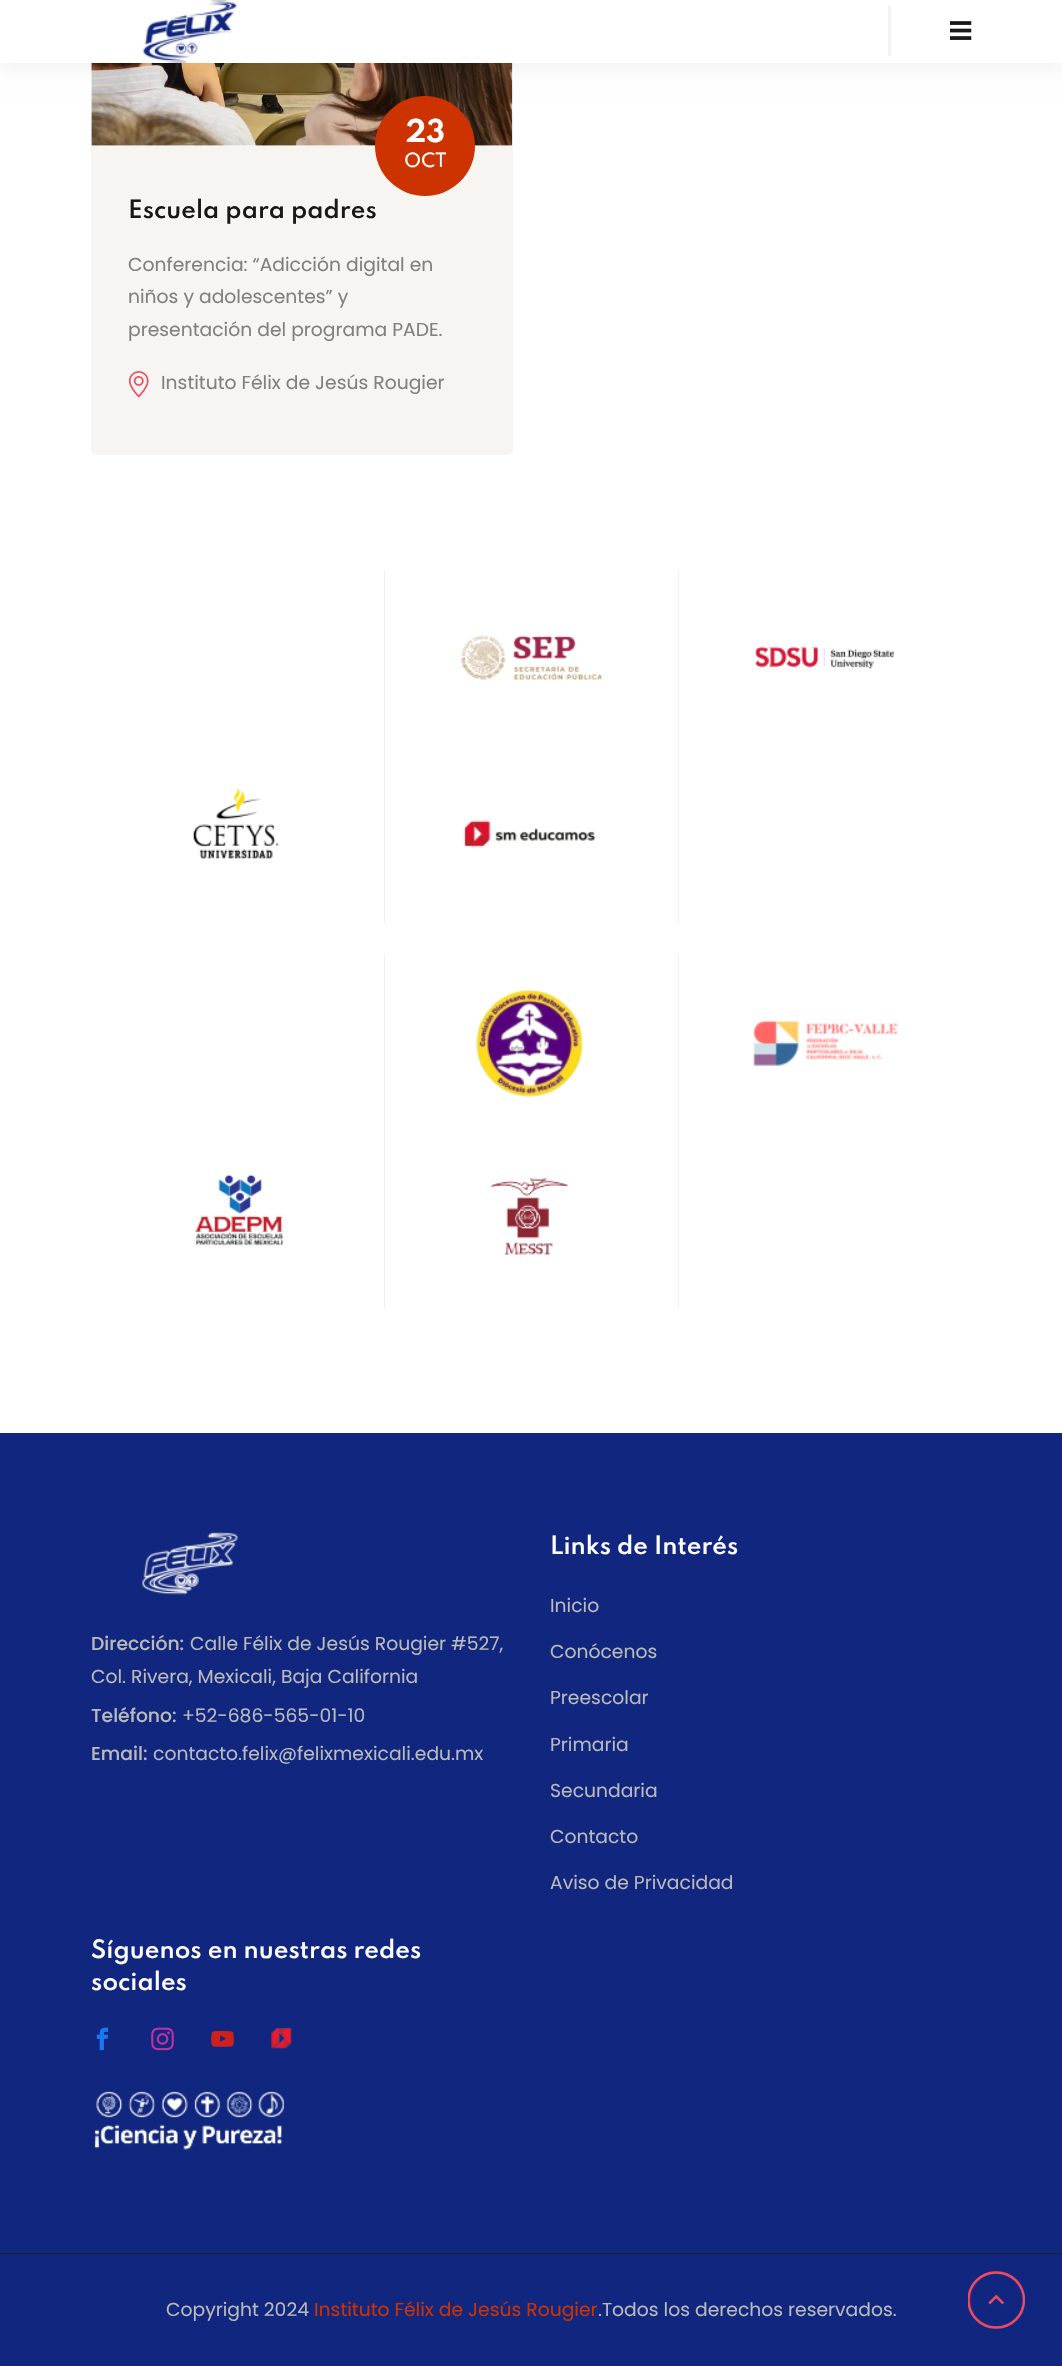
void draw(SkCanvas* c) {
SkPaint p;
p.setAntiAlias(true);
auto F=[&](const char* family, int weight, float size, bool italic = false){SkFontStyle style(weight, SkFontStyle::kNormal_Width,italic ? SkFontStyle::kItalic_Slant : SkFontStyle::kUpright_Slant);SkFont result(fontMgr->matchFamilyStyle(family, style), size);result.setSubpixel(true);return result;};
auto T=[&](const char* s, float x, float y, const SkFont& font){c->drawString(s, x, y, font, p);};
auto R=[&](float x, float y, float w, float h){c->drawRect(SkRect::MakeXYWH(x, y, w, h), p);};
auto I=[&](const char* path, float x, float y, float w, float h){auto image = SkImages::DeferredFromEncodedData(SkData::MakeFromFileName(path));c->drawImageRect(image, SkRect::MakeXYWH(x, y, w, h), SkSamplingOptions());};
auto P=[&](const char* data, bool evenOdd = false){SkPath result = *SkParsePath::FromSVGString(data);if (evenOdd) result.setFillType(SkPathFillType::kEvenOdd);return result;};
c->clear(0xffffffff);
I("3.png",91,63,422,83);
p.setColor(0xfff7f5f2);
c->drawPath(P("M91 146h422v303c0 3.5-2.5 6-6 6h-410c-3.5 0-6-2.5-6-6z"),p);
p.setColor(0xffcc3300);
c->drawCircle(425,146,50,p);
p.setColor(0x0d000000);
p.setMaskFilter(SkMaskFilter::MakeBlur(kNormal_SkBlurStyle, 9.5));
c->drawRect(SkRect::MakeXYWH(0,8,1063,62),p);
p.setMaskFilter(nullptr);
p.setColor(0xffffffff);
R(0,0,1062,63);
I("1.png",142,0,95,63);
p.setColor(0xfff2f2f2);
R(888,6,3,50);
I("2.png",950,21,22,19);
auto f1 = F("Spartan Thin",700,28);
p.setColor(0xffffffff);
T("23",406,142,f1);
auto f2 = F("Spartan Thin",500,17.5);
T("OCT",404,167,f2);
auto f3 = F("Spartan Thin",600,22.5);
p.setColor(0xff181818);
T("Escuela para padres",128,218,f3);
auto f4 = F("Poppins",400,18.75);
p.setColor(0xff808080);
T("Conferencia: “Adicción digital en",128,271,f4);
T("niños y adolescentes” y",128,303,f4);
T("presentación del programa PADE.",128,336,f4);
I("4.png",128,371,21,27);
T("Instituto Félix de Jesús Rougier",161,389,f4);
p.setColor(0xfff0f0f0);
R(384,570,1,353);
R(678,570,1,353);
I("5.png",461,635,142,45);
I("6.png",754,646,140,23);
I("7.png",193,788,86,71);
I("8.png",463,819,133,29);
R(384,955,1,353);
R(678,955,1,353);
I("9.png",476,989,108,109);
I("10.png",753,1020,145,46);
I("11.png",194,1174,89,72);
I("12.png",491,1178,77,77);
p.setColor(0xff11277f);
R(0,1433,1062,933);
I("13.png",142,1532,96,63);
auto f5 = F("Poppins",500,18.75);
p.setColor(0xffbababa);
T("Dirección:",91,1650,f5);
T("Calle Félix de Jesús Rougier #527,",190,1650,f4);
T("Col. Rivera, Mexicali, Baja California",91,1683,f4);
T("Teléfono:",91,1722,f5);
T("+52-686-565-01-10",182,1722,f4);
T("Email:",91,1760,f5);
T("contacto.felix@felixmexicali.edu.mx",153,1760,f4);
p.setColor(0xffffffff);
T("Links de Interés",550,1554,f3);
p.setColor(0xffbababa);
T("Inicio",550,1612,f4);
T("Conócenos",550,1658,f4);
T("Preescolar",550,1704,f4);
T("Primaria",550,1751,f4);
T("Secundaria",550,1797,f4);
T("Contacto",550,1843,f4);
T("Aviso de Privacidad",550,1889,f4);
p.setColor(0xffffffff);
T("Síguenos en nuestras redes",91,1958,f3);
T("sociales",91,1990,f3);
I("14.png",96,2027,13,24);
I("15.png",151,2027,23,24);
I("16.png",211,2031,23,16);
I("17.png",271,2028,21,21);
I("18.png",94,2091,191,59);
p.setColor(0xff1f2020);
R(0,2253,1062,1);
p.setColor(0xffbababa);
T("Copyright 2024",166,2316,f4);
p.setColor(0xffcc3300);
T("Instituto Félix de Jesús Rougier",314,2316,f4);
p.setColor(0xffbababa);
T(".Todos los derechos reservados.",598,2316,f4);
p.setStroke(true);
p.setStrokeWidth(3);
p.setColor(0xff412d77);
c->drawRoundRect(SkRect::MakeXYWH(969.5,2272.5,54,55),27,27,p);
c->save();
c->clipRect(SkRect::MakeXYWH(968,2271,57,58));
p.setStrokeWidth(2.3);
p.setColor(0xffee4a62);
c->drawPath(P("M996 2272.5c15.5 0 28 12 28 27.5c0 15.5-12.5 27.5-28 27.5c-15 0-27.5-12-27.5-27.5c0-15.5 12.5-27.5 27.5-27.5"),p);
c->restore();
I("19.png",988,2294,17,11);
}
